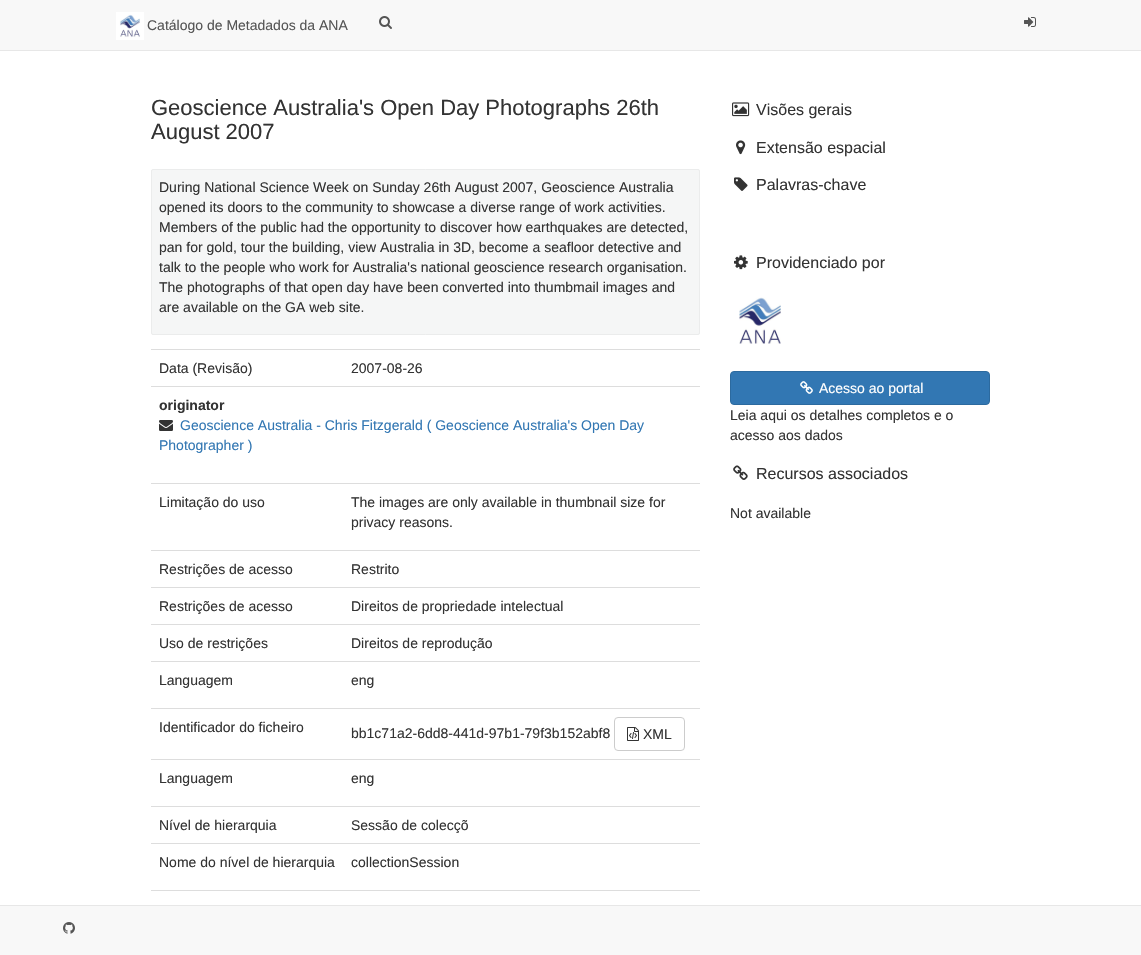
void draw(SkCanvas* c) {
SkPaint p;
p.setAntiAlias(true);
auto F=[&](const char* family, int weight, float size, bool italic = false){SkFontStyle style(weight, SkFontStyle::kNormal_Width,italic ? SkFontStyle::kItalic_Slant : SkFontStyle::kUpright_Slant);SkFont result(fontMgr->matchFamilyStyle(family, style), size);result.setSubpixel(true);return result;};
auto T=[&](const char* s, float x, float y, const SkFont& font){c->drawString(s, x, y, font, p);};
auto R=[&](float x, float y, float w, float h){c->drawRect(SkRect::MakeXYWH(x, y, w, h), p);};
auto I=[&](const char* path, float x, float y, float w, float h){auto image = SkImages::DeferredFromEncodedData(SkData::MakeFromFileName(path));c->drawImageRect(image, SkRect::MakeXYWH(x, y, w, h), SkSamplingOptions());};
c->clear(0xffffffff);
p.setColor(0xfff8f8f8);
R(0,0,1141,50);
p.setColor(0xffe7e7e7);
R(0,50,1141,1);
I("1.png",116,12,28,28);
auto f1 = F("Liberation Sans",400,14);
p.setColor(0xff555555);
T("Catálogo de Metadados da ANA",147,30,f1);
I("2.png",379,16,13,13);
I("3.png",1024,17,12,10);
auto f2 = F("Liberation Sans",400,22);
p.setColor(0xff333333);
T("Geoscience Australia's Open Day Photographs 26th",151,115,f2);
T("August 2007",151,139,f2);
p.setColor(0xfff5f6f6);
c->drawRoundRect(SkRect::MakeXYWH(151.5,169.5,548,165),1.5,1.5,p);
p.setStroke(true);
p.setStrokeWidth(1);
p.setColor(0xffebecec);
c->drawRoundRect(SkRect::MakeXYWH(151.5,169.5,548,165),1.5,1.5,p);
p.setStroke(false);
p.setColor(0xff333333);
T("During National Science Week on Sunday 26th August 2007, Geoscience Australia",159,192,f1);
T("opened its doors to the community to showcase a diverse range of work activities.",159,212,f1);
T("Members of the public had the opportunity to discover how earthquakes are detected,",159,232,f1);
T("pan for gold, tour the building, view Australia in 3D, become a seafloor detective and",159,252,f1);
T("talk to the people who work for Australia's national geoscience research organisation.",159,272,f1);
T("The photographs of that open day have been converted into thumbmail images and",159,292,f1);
T("are available on the GA web site.",159,312,f1);
p.setColor(0xffdddddd);
R(151,349,549,1);
p.setColor(0xff333333);
T("Data (Revisão)",159,373,f1);
T("2007-08-26",351,373,f1);
p.setColor(0xffdddddd);
R(151,386,549,1);
auto f3 = F("Liberation Sans",700,14);
p.setColor(0xff333333);
T("originator",159,410,f3);
I("4.png",159,420,14,11);
p.setColor(0xff3277b3);
T("Geoscience Australia - Chris Fitzgerald ( Geoscience Australia's Open Day",180,430,f1);
T("Photographer )",159,450,f1);
p.setColor(0xffdddddd);
R(151,483,549,1);
p.setColor(0xff333333);
T("Limitação do uso",159,507,f1);
T("The images are only available in thumbnail size for",351,507,f1);
T("privacy reasons.",351,527,f1);
p.setColor(0xffdddddd);
R(151,550,549,1);
p.setColor(0xff333333);
T("Restrições de acesso",159,574,f1);
T("Restrito",351,574,f1);
p.setColor(0xffdddddd);
R(151,587,549,1);
p.setColor(0xff333333);
T("Restrições de acesso",159,611,f1);
T("Direitos de propriedade intelectual",351,611,f1);
p.setColor(0xffdddddd);
R(151,624,549,1);
p.setColor(0xff333333);
T("Uso de restrições",159,648,f1);
T("Direitos de reprodução",351,648,f1);
p.setColor(0xffdddddd);
R(151,661,549,1);
p.setColor(0xff333333);
T("Languagem",159,685,f1);
T("eng",351,685,f1);
p.setColor(0xffdddddd);
R(151,708,549,1);
p.setColor(0xff333333);
T("Identificador do ficheiro",159,732,f1);
T("bb1c71a2-6dd8-441d-97b1-79f3b152abf8",351,738,f1);
p.setStroke(true);
p.setColor(0xffcccccc);
c->drawRoundRect(SkRect::MakeXYWH(614.5,717.5,70,33),3.5,3.5,p);
I("5.png",627,727,12,14);
p.setStroke(false);
p.setColor(0xff333333);
T("XML",643,739,f1);
p.setColor(0xffdddddd);
R(151,759,549,1);
p.setColor(0xff333333);
T("Languagem",159,783,f1);
T("eng",351,783,f1);
p.setColor(0xffdddddd);
R(151,806,549,1);
p.setColor(0xff333333);
T("Nível de hierarquia",159,830,f1);
T("Sessão de colecçõ",351,830,f1);
p.setColor(0xffdddddd);
R(151,843,549,1);
p.setColor(0xff333333);
T("Nome do nível de hierarquia",159,867,f1);
T("collectionSession",351,867,f1);
p.setColor(0xffdddddd);
R(151,890,549,1);
I("6.png",732,102,18,15);
auto f4 = F("Liberation Sans",400,16);
p.setColor(0xff333333);
T("Visões gerais",756,115,f4);
I("7.png",736,140,10,15);
T("Extensão espacial",756,153,f4);
I("8.png",734,177,14,14);
T("Palavras-chave",756,190,f4);
I("9.png",734,255,14,15);
T("Providenciado por",756,268,f4);
I("10.png",739,297,42,47);
p.setColor(0xff3277b3);
c->drawRoundRect(SkRect::MakeXYWH(730.5,371.5,259,33),3.5,3.5,p);
p.setStroke(true);
p.setColor(0xff2c6a9f);
c->drawRoundRect(SkRect::MakeXYWH(730.5,371.5,259,33),3.5,3.5,p);
I("11.png",800,381,13,13);
p.setStroke(false);
p.setColor(0xffffffff);
T("Acesso ao portal",819,393,f1);
p.setColor(0xff333333);
T("Leia aqui os detalhes completos e o",730,420,f1);
T("acesso aos dados",730,440,f1);
I("12.png",733,465,15,15);
T("Recursos associados",756,479,f4);
T("Not available",730,518,f1);
p.setColor(0xfff8f8f8);
R(0,906,1141,49);
p.setColor(0xffe7e7e7);
R(0,905,1141,1);
I("13.png",63,922,12,12);
}
